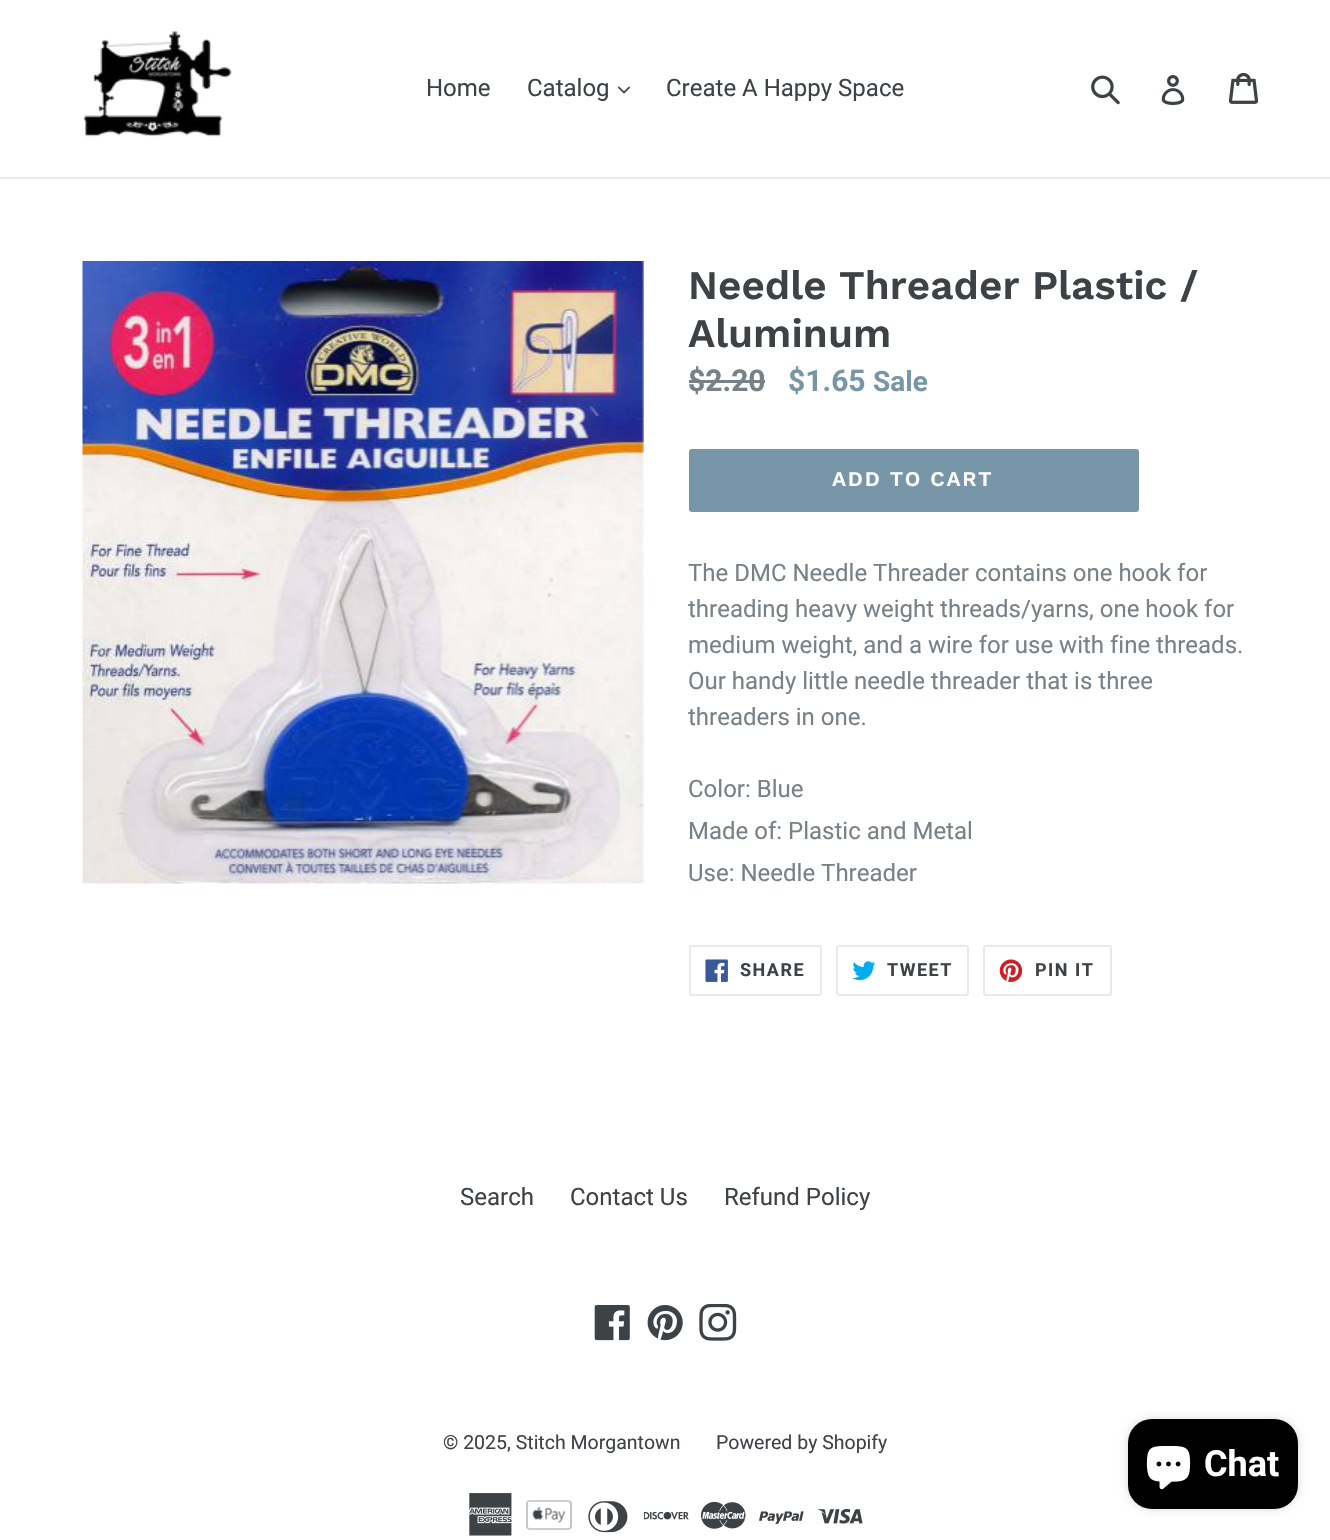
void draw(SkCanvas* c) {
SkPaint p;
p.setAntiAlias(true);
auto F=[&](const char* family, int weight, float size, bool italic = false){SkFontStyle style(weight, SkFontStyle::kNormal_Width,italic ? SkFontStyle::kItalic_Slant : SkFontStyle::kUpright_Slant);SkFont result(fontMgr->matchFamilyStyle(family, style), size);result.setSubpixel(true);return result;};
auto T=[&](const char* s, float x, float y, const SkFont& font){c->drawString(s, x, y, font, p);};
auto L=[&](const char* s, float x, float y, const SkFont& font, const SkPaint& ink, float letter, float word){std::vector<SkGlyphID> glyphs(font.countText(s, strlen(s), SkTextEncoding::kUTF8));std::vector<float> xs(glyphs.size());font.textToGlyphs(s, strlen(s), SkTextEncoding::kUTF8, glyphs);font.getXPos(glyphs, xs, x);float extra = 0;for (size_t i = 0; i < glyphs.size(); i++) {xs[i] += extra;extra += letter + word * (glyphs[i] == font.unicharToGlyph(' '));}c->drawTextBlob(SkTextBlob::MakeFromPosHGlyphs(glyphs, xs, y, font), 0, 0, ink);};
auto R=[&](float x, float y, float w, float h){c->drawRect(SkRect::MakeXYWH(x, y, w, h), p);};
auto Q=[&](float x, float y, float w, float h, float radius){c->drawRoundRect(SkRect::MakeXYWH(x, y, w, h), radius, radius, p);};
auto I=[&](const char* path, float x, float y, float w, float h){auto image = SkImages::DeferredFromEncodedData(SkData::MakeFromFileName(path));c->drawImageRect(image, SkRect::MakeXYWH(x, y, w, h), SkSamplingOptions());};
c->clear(0xffffffff);
p.setColor(0xffe8e9eb);
R(0,177,1330,2);
I("1.png",83,31,149,106);
auto f1 = F("Roboto",400,24);
p.setColor(0xff3d4246);
T("Home",426,96,f1);
T("Catalog",527,96,f1);
I("2.png",618,86,12,8);
T("Create A Happy Space",666,96,f1);
I("3.png",1091,75,29,30);
I("4.png",1161,75,24,30);
I("5.png",1229,72,30,32);
I("6.png",82,261,562,623);
auto f2 = F("Work Sans",600,40.5);
T("Needle Threader Plastic /",688,299,f2);
T("Aluminum",688,347,f2);
auto f3 = F("Roboto",700,30);
p.setColor(0xff788188);
T("$2.20",688,391,f3);
R(689,380,76,3);
p.setColor(0xff7796a8);
T("$1.65",788,391,f3);
auto f4 = F("Roboto",700,28);
T("Sale",873,391,f4);
Q(689,449,450,63,3);
auto f5 = F("Work Sans",600,21);
p.setColor(0xffffffff);
L("ADD TO CART",832,486,f5,p,1.75,0);
p.setColor(0xff788188);
T("The DMC Needle Threader contains one hook for",688,581,f1);
T("threading heavy weight threads/yarns, one hook for",688,617,f1);
T("medium weight, and a wire for use with fine threads.",688,653,f1);
T("Our handy little needle threader that is three",688,689,f1);
T("threaders in one.",688,725,f1);
T("Color: Blue",688,797,f1);
T("Made of: Plastic and Metal",688,839,f1);
T("Use: Needle Threader",688,881,f1);
p.setStroke(true);
p.setStrokeWidth(2);
p.setColor(0xffe8e9eb);
c->drawRoundRect(SkRect::MakeXYWH(690,946,131,49),2,2,p);
I("7.png",705,959,23,23);
auto f6 = F("Roboto",700,18);
p.setStroke(false);
p.setColor(0xff3d4246);
L("SHARE",740,976,f6,p,1.5,0);
p.setStroke(true);
p.setColor(0xffe8e9eb);
c->drawRoundRect(SkRect::MakeXYWH(837,946,131,49),2,2,p);
I("8.png",852,961,24,20);
p.setStroke(false);
p.setColor(0xff3d4246);
L("TWEET",887,976,f6,p,1.5,0);
p.setStroke(true);
p.setColor(0xffe8e9eb);
c->drawRoundRect(SkRect::MakeXYWH(984,946,127,49),2,2,p);
I("9.png",999,959,24,23);
p.setStroke(false);
p.setColor(0xff3d4246);
L("PIN IT",1035,976,f6,p,1.5,0);
T("Search",460,1205,f1);
T("Contact Us",570,1205,f1);
T("Refund Policy",724,1205,f1);
I("10.png",594,1305,36,36);
I("11.png",647,1305,36,36);
I("12.png",699,1304,38,37);
auto f7 = F("Roboto",400,19.5);
T("© 2025, Stitch Morgantown",443,1449,f7);
T("Powered by Shopify",716,1449,f7);
I("13.png",469,1493,43,43);
I("14.png",526,1500,46,30);
I("15.png",588,1501,40,32);
I("16.png",644,1511,45,9);
I("17.png",701,1501,45,28);
I("18.png",759,1511,45,13);
I("19.png",818,1509,45,15);
p.setColor(0x26000000);
p.setMaskFilter(SkMaskFilter::MakeBlur(kNormal_SkBlurStyle, 4));
c->drawRoundRect(SkRect::MakeXYWH(1128,1419,170,90),24,24,p);
p.setMaskFilter(nullptr);
p.setColor(0xff000000);
Q(1128,1419,170,90,24);
I("20.png",1146,1446,45,44);
auto f8 = F("Roboto",700,36);
p.setColor(0xffffffff);
T("Chat",1204,1476,f8);
}
